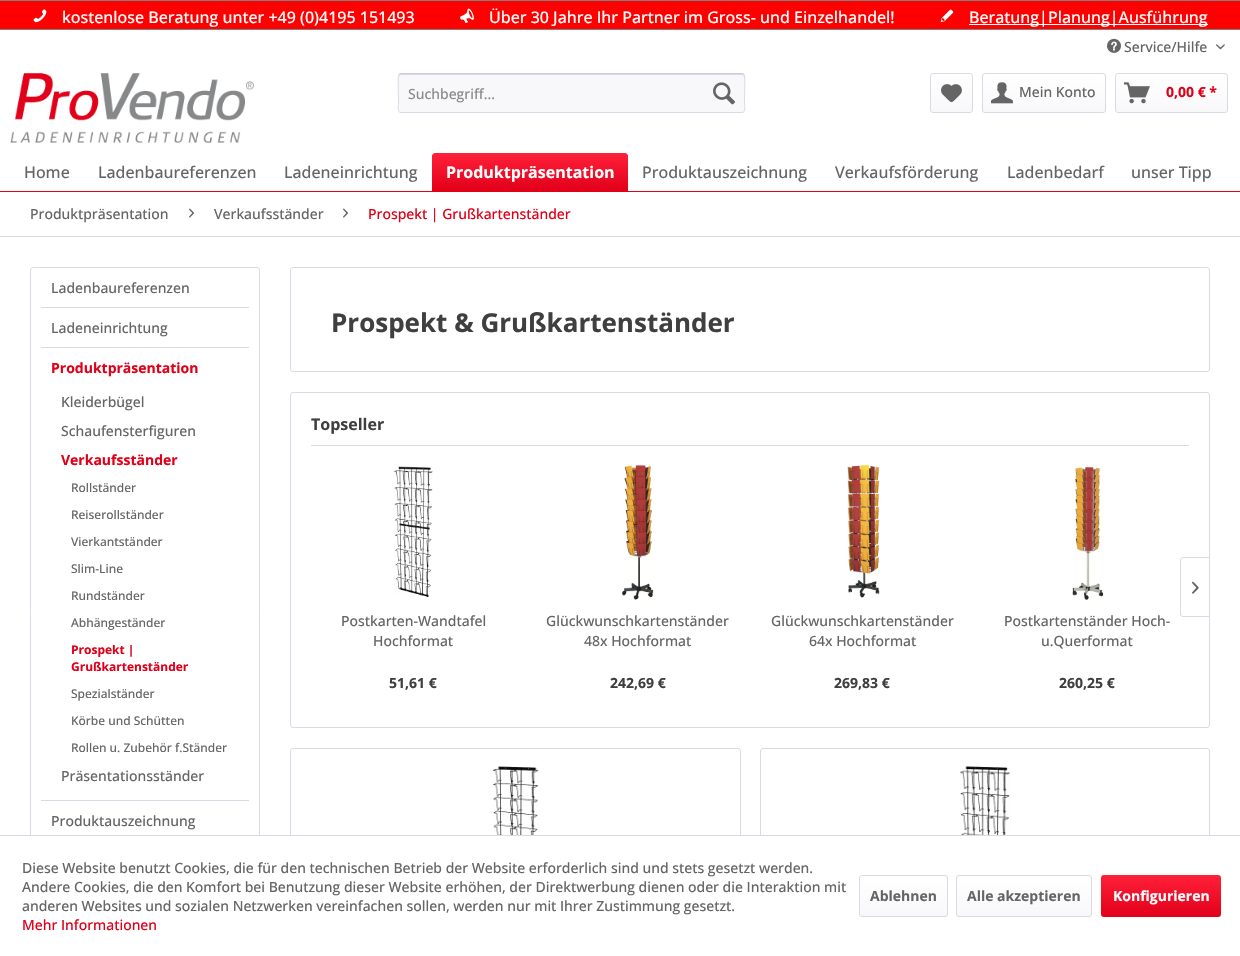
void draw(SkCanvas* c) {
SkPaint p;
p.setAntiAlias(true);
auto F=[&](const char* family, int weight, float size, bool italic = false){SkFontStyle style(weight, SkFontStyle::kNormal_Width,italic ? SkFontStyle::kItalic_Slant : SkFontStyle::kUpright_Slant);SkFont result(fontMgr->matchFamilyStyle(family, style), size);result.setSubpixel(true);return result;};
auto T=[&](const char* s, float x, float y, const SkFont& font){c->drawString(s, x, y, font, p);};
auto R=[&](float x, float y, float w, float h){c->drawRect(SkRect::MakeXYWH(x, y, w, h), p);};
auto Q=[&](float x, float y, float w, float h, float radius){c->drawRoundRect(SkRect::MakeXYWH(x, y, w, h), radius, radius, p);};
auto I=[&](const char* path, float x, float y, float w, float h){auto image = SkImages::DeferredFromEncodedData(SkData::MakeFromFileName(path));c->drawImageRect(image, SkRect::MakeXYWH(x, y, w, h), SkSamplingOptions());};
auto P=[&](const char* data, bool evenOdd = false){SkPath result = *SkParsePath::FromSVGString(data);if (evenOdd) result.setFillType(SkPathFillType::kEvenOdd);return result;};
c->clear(0xffffffff);
p.setColor(0xffff0000);
R(0,1,1240,28);
p.setColor(0xff808080);
R(0,0,1240,1);
R(0,29,1240,1);
I("1.png",33,9,14,14);
auto f1 = F("Open Sans",500,16);
p.setColor(0xffffffff);
T("kostenlose Beratung unter +49 (0)4195 151493",62,23,f1);
I("2.png",460,8,14,15);
T("Über 30 Jahre Ihr Partner im Gross- und Einzelhandel!",489,23,f1);
I("3.png",940,9,14,13);
R(969,24,239,1);
T("Beratung|Planung|Ausführung",969,23,f1);
I("4.png",1107,38,14,15);
auto f2 = F("Open Sans",500,14);
p.setColor(0xff656565);
T("Service/Hilfe",1124,52,f2);
I("5.png",1216,44,9,6);
I("6.png",10,73,244,70);
p.setColor(0xfff8f8fa);
Q(398,73,347,40,3);
p.setColor(0xffdadae5);
c->drawPath(P("M401 75h341c1 0 2 1 2 2c0-1 0-3-2-3h-341l-2 1v2c0-1 1-2 2-2z"),p);
p.setStroke(true);
p.setStrokeWidth(1);
p.setColor(0xffcbcbdb);
c->drawPath(P("M399 74l2-.5h341l2 .5"),p);
p.setColor(0xffdadae5);
c->drawPath(P("M744 74c1.5 2 .5 21 .5 24.5v6c0 1.5 1.5 8-2.5 8h-341c-4 0-2.5-6.5-2.5-8v-6c0-3.5-1-22.5 .5-24.5"),p);
p.setStroke(false);
p.setColor(0xff8b8b8b);
T("Suchbegriff...",408,99,f2);
I("7.png",713,82,22,23);
{
const SkColor colors[] = {0xffffffff,0xfff8f8fa};
const float stops[] = {0,1};
const SkPoint ends[] = {{952,74}, {952,112}};
p.setShader(SkGradientShader::MakeLinear(ends, colors, stops, 2, SkTileMode::kClamp));
p.setAlpha(255);
}
Q(931,74,41,38,2);
p.setStroke(true);
p.setShader(nullptr);
p.setColor(0xffdadae5);
c->drawRoundRect(SkRect::MakeXYWH(930.5,73.5,42,39),2.5,2.5,p);
I("8.png",941,84,21,19);
p.setStroke(false);
{
const SkColor colors[] = {0xffffffff,0xfff8f8fa};
const float stops[] = {0,1};
const SkPoint ends[] = {{1044,74}, {1044,112}};
p.setShader(SkGradientShader::MakeLinear(ends, colors, stops, 2, SkTileMode::kClamp));
p.setAlpha(255);
}
Q(983,74,122,38,2);
p.setStroke(true);
p.setShader(nullptr);
p.setColor(0xffdadae5);
c->drawRoundRect(SkRect::MakeXYWH(982.5,73.5,123,39),2.5,2.5,p);
I("9.png",991,82,22,22);
p.setStroke(false);
p.setColor(0xff656565);
T("Mein Konto",1019,97,f2);
{
const SkColor colors[] = {0xffffffff,0xfff8f8fa};
const float stops[] = {0,1};
const SkPoint ends[] = {{1172,74}, {1172,112}};
p.setShader(SkGradientShader::MakeLinear(ends, colors, stops, 2, SkTileMode::kClamp));
p.setAlpha(255);
}
Q(1116,74,111,38,2);
p.setStroke(true);
p.setShader(nullptr);
p.setColor(0xffdadae5);
c->drawRoundRect(SkRect::MakeXYWH(1115.5,73.5,112,39),2.5,2.5,p);
I("10.png",1124,82,26,22);
auto f3 = F("Open Sans",700,14);
p.setStroke(false);
p.setColor(0xffe20019);
T("0,00 € *",1166,97,f3);
R(0,191,1240,1);
p.setColor(0xff656565);
T("Home",24,178,f1);
T("Ladenbaureferenzen",98,178,f1);
T("Ladeneinrichtung",284,178,f1);
{
const SkColor colors[] = {0xffff2039,0xffe20019};
const float stops[] = {0,1};
const SkPoint ends[] = {{530,153}, {530,191}};
p.setShader(SkGradientShader::MakeLinear(ends, colors, stops, 2, SkTileMode::kClamp));
p.setAlpha(255);
}
c->drawPath(P("M435 153h190c1.5 0 3 1.5 3 3v35h-196v-35c0-1.5 1.5-3 3-3z"),p);
auto f4 = F("Open Sans",700,16);
p.setShader(nullptr);
p.setColor(0xffffffff);
T("Produktpräsentation",446,178,f4);
p.setColor(0xff656565);
T("Produktauszeichnung",642,178,f1);
T("Verkaufsförderung",835,178,f1);
T("Ladenbedarf",1007,178,f1);
T("unser Tipp",1131,178,f1);
p.setColor(0xffdadae5);
R(0,236,1240,1);
p.setColor(0xff656565);
T("Produktpräsentation",30,219,f2);
I("11.png",189,208,5,10);
T("Verkaufsständer",214,219,f2);
I("11.png",343,208,5,10);
p.setColor(0xffe20019);
T("Prospekt | Grußkartenständer",368,219,f2);
p.setStroke(true);
p.setColor(0xffdadae5);
c->drawRoundRect(SkRect::MakeXYWH(30.5,267.5,229,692),2.5,2.5,p);
p.setStroke(false);
R(41,307,208,1);
p.setColor(0xff656565);
T("Ladenbaureferenzen",51,293,f2);
p.setColor(0xffdadae5);
R(41,347,208,1);
p.setColor(0xff656565);
T("Ladeneinrichtung",51,333,f2);
p.setColor(0xffdadae5);
R(41,800,208,1);
p.setColor(0xffe20019);
T("Produktpräsentation",51,373,f3);
p.setColor(0xff656565);
T("Kleiderbügel",61,407,f2);
T("Schaufensterfiguren",61,436,f2);
p.setColor(0xffe20019);
T("Verkaufsständer",61,465,f3);
auto f5 = F("Open Sans",500,12);
p.setColor(0xff656565);
T("Rollständer",71,492,f5);
T("Reiserollständer",71,519,f5);
T("Vierkantständer",71,546,f5);
T("Slim-Line",71,573,f5);
T("Rundständer",71,600,f5);
T("Abhängeständer",71,627,f5);
auto f6 = F("Open Sans",700,12);
p.setColor(0xffe20019);
T("Prospekt |",71,654,f6);
T("Grußkartenständer",71,671,f6);
p.setColor(0xff656565);
T("Spezialständer",71,698,f5);
T("Körbe und Schütten",71,725,f5);
T("Rollen u. Zubehör f.Ständer",71,752,f5);
T("Präsentationsständer",61,781,f2);
T("Produktauszeichnung",51,826,f2);
p.setStroke(true);
p.setColor(0xffdadae5);
c->drawRoundRect(SkRect::MakeXYWH(290.5,267.5,919,104),2.5,2.5,p);
auto f7 = F("Open Sans",700,26);
p.setStroke(false);
p.setColor(0xff3f3f3f);
T("Prospekt & Grußkartenständer",331,332,f7);
p.setStroke(true);
p.setColor(0xffdadae5);
c->drawRoundRect(SkRect::MakeXYWH(290.5,392.5,919,335),2.5,2.5,p);
p.setStroke(false);
R(311,445,878,1);
p.setColor(0xff3f3f3f);
T("Topseller",311,430,f4);
p.setStroke(true);
p.setColor(0xffdadae5);
c->drawPath(P("M1183 557.5h26.5v59h-26.5c-1.5 0-2.5-1-2.5-2.5v-54c0-1.5 1-2.5 2.5-2.5z"),p);
I("12.png",1192,581,7,13);
I("13.png",394,466,39,131);
p.setStroke(false);
p.setColor(0xff656565);
T("Postkarten-Wandtafel",341,626,f2);
T("Hochformat",373,646,f2);
p.setColor(0xff3f3f3f);
T("51,61 €",389,688,f3);
I("14.png",621,465,33,135);
p.setColor(0xff656565);
T("Glückwunschkartenständer",546,626,f2);
T("48x Hochformat",584,646,f2);
p.setColor(0xff3f3f3f);
T("242,69 €",610,688,f3);
I("15.png",847,464,33,134);
p.setColor(0xff656565);
T("Glückwunschkartenständer",771,626,f2);
T("64x Hochformat",809,646,f2);
p.setColor(0xff3f3f3f);
T("269,83 €",834,688,f3);
I("16.png",1072,467,32,133);
p.setColor(0xff656565);
T("Postkartenständer Hoch-",1004,626,f2);
T("u.Querformat",1041,646,f2);
p.setColor(0xff3f3f3f);
T("260,25 €",1059,688,f3);
p.setStroke(true);
p.setColor(0xffdadae5);
c->drawRoundRect(SkRect::MakeXYWH(290.5,748.5,450,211),2.5,2.5,p);
I("17.png",492,766,47,69);
c->drawRoundRect(SkRect::MakeXYWH(760.5,748.5,449,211),2.5,2.5,p);
I("18.png",960,766,50,69);
p.setStroke(false);
p.setColor(0xffffffff);
R(30,836,1180,120);
p.setColor(0xffdadae5);
R(0,835,1240,1);
p.setColor(0xff656565);
T("Diese Website benutzt Cookies, die für den technischen Betrieb der Website erforderlich sind und stets gesetzt werden.",22,873,f2);
T("Andere Cookies, die den Komfort bei Benutzung dieser Website erhöhen, der Direktwerbung dienen oder die Interaktion mit",22,892,f2);
T("anderen Websites und sozialen Netzwerken vereinfachen sollen, werden nur mit Ihrer Zustimmung gesetzt.",22,911,f2);
p.setColor(0xffe20019);
T("Mehr Informationen",22,930,f2);
{
const SkColor colors[] = {0xffffffff,0xfff8f8fa};
const float stops[] = {0,1};
const SkPoint ends[] = {{904,876}, {904,916}};
p.setShader(SkGradientShader::MakeLinear(ends, colors, stops, 2, SkTileMode::kClamp));
p.setAlpha(255);
}
Q(860,876,87,40,2);
p.setStroke(true);
p.setShader(nullptr);
p.setColor(0xffdadae5);
c->drawRoundRect(SkRect::MakeXYWH(859.5,875.5,88,41),2.5,2.5,p);
p.setStroke(false);
p.setColor(0xff656565);
T("Ablehnen",870,901,f3);
{
const SkColor colors[] = {0xffffffff,0xfff8f8fa};
const float stops[] = {0,1};
const SkPoint ends[] = {{1024,876}, {1024,916}};
p.setShader(SkGradientShader::MakeLinear(ends, colors, stops, 2, SkTileMode::kClamp));
p.setAlpha(255);
}
Q(957,876,134,40,2);
p.setStroke(true);
p.setShader(nullptr);
p.setColor(0xffdadae5);
c->drawRoundRect(SkRect::MakeXYWH(956.5,875.5,135,41),2.5,2.5,p);
p.setStroke(false);
p.setColor(0xff656565);
T("Alle akzeptieren",967,901,f3);
{
const SkColor colors[] = {0xffff2039,0xffe20019};
const float stops[] = {0,1};
const SkPoint ends[] = {{1161,875}, {1161,917}};
p.setShader(SkGradientShader::MakeLinear(ends, colors, stops, 2, SkTileMode::kClamp));
p.setAlpha(255);
}
Q(1101,875,120,42,3);
p.setShader(nullptr);
p.setColor(0xffffffff);
T("Konfigurieren",1113,901,f3);
}
